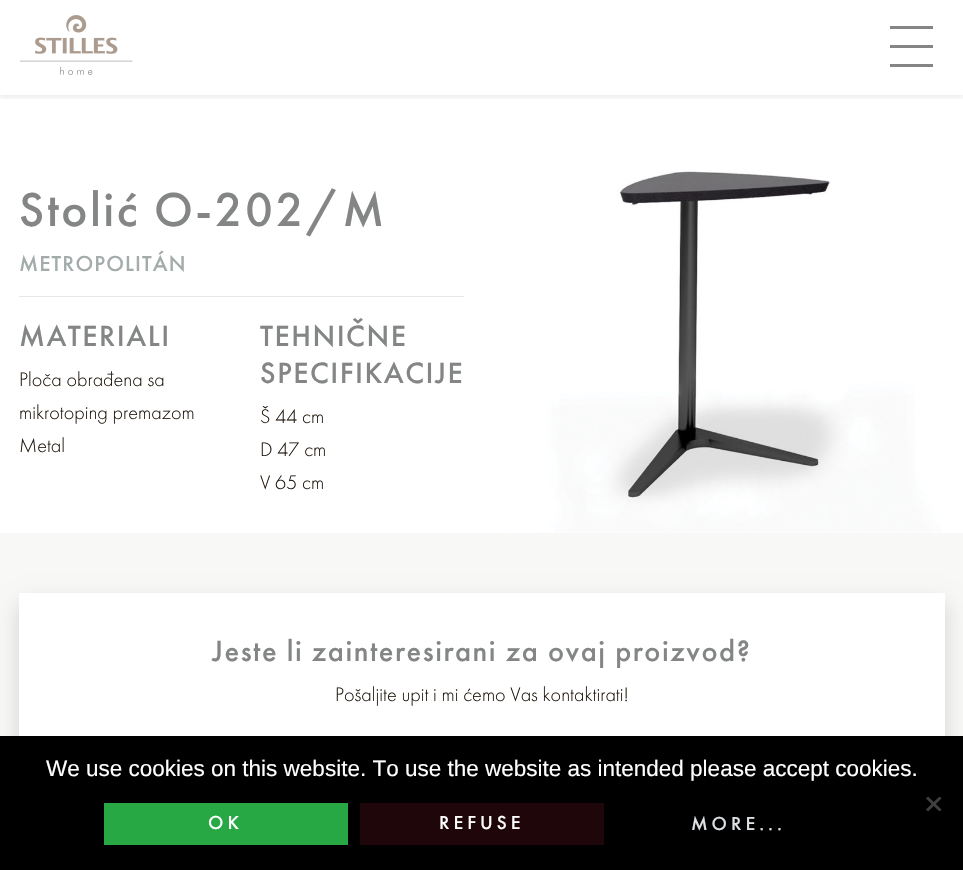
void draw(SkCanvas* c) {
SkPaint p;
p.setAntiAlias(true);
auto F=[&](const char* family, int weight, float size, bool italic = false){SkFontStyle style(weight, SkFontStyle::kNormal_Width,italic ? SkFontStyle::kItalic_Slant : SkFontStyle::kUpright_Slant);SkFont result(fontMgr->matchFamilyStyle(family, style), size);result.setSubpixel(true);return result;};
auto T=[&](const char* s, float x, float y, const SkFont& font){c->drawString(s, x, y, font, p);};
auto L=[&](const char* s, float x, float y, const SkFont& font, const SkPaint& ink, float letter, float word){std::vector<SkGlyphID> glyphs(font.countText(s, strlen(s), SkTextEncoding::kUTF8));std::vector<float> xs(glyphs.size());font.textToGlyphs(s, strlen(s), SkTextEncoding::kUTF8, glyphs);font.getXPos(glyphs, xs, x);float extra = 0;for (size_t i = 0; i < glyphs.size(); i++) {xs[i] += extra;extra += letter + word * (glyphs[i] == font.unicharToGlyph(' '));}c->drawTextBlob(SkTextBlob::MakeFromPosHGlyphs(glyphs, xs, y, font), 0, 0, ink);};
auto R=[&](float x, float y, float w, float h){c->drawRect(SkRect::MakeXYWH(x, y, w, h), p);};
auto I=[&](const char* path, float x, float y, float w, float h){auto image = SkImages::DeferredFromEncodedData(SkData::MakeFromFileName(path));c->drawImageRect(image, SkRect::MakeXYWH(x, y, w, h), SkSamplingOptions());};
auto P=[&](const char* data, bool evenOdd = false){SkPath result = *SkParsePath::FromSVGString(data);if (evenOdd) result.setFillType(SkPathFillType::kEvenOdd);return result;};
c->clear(0xffffffff);
c->save();
c->clipRect(SkRect::MakeXYWH(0,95,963,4));
p.setColor(0x12000000);
p.setMaskFilter(SkMaskFilter::MakeBlur(kNormal_SkBlurStyle, 2.5));
c->drawRect(SkRect::MakeXYWH(0,3,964,95),p);
p.setMaskFilter(nullptr);
c->restore();
I("1.png",20,15,113,60);
p.setColor(0xff848686);
R(890,26,43,3);
R(890,45,43,3);
R(890,64,43,3);
auto f1 = F("Futura PT",500,49.25);
L("Stolić O-202/M",19,226,f1,p,2.5,0);
auto f2 = F("Futura PT",500,22.5);
p.setColor(0xffa3abab);
L("METROPOLITÁN",19,271,f2,p,1.1,0);
p.setColor(0xffe6e6e6);
R(19,296,445,1);
auto f3 = F("Futura PT",500,30.4);
p.setColor(0xff848686);
L("MATERIALI",19,346,f3,p,1.5,0);
auto f4 = F("Futura PT",300,20.25);
p.setColor(0xff20170e);
T("Ploča obrađena sa",19,386,f4);
T("mikrotoping premazom",19,419,f4);
T("Metal",19,452,f4);
p.setColor(0xff848686);
L("TEHNIČNE",260,346,f3,p,1.5,0);
L("SPECIFIKACIJE",260,383,f3,p,1.5,0);
p.setColor(0xff20170e);
T("Š 44 cm",260,423,f4);
T("D 47 cm",260,456,f4);
T("V 65 cm",260,489,f4);
I("2.png",505,171,436,362);
p.setColor(0xfff8f8f7);
R(0,533,963,203);
p.setColor(0x26000000);
p.setMaskFilter(SkMaskFilter::MakeBlur(kNormal_SkBlurStyle, 10));
c->drawRect(SkRect::MakeXYWH(19,603,926,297),p);
p.setMaskFilter(nullptr);
p.setColor(0xffffffff);
R(19,593,926,143);
p.setColor(0xff848686);
L("Jeste li zainteresirani za ovaj proizvod?",212,661,f3,p,1.5,0);
p.setColor(0xff20170e);
T("Pošaljite upit i mi ćemo Vas kontaktirati!",335,701,f4);
p.setColor(0xff000000);
R(0,736,963,134);
auto f5 = F("Liberation Sans",400,22.5);
p.setColor(0xffffffff);
T("We use cookies on this website. To use the website as intended please accept cookies.",46,776,f5);
p.setColor(0xff404040);
c->drawPath(P("M939.5 796.5l2 2l-13.5 13l-2-2z"),p);
c->drawPath(P("M926 798.5l2-2l13.5 13l-2 2z"),p);
p.setColor(0xff28a745);
R(104,803,244,42);
auto f6 = F("Futura PT",500,19.5);
p.setColor(0xffffffff);
L("OK",208,829,f6,p,4,0);
p.setColor(0xff1f060a);
R(360,803,244,42);
p.setColor(0xffffffff);
L("REFUSE",439,829,f6,p,4,0);
p.setColor(0xffdee2e6);
L("MORE...",691,830,f6,p,4,0);
}
